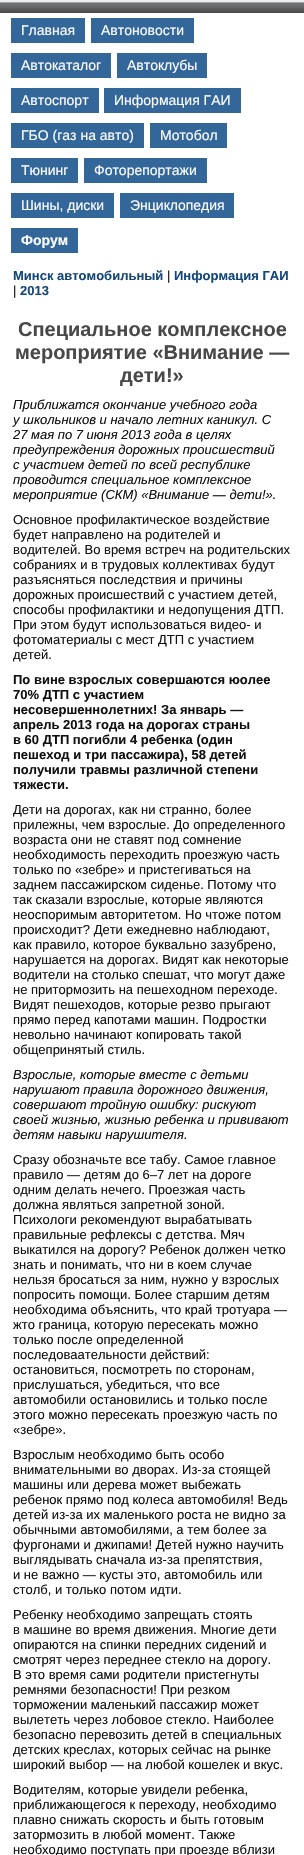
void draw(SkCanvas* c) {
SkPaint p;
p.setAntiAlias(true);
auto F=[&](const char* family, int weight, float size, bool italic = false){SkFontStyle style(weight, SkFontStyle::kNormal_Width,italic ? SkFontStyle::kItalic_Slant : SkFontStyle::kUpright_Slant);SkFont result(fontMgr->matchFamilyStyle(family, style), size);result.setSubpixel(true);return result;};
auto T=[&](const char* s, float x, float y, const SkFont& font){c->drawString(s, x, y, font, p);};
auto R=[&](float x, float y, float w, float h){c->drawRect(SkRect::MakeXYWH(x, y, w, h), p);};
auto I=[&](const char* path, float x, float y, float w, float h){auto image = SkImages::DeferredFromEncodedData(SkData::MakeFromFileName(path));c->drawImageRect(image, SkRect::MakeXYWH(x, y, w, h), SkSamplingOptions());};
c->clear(0xffffffff);
I("1.png",0,0,304,13);
p.setColor(0xff336699);
R(11,18,74,25);
auto f1 = F("Liberation Sans",400,14);
p.setColor(0xffffffff);
T("Главная",21,35,f1);
p.setColor(0xff336699);
R(91,18,103,25);
p.setColor(0xffffffff);
T("Автоновости",101,35,f1);
p.setColor(0xff336699);
R(11,53,100,25);
p.setColor(0xffffffff);
T("Автокаталог",21,70,f1);
p.setColor(0xff336699);
R(117,53,90,25);
p.setColor(0xffffffff);
T("Автоклубы",127,70,f1);
p.setColor(0xff336699);
R(11,88,88,25);
p.setColor(0xffffffff);
T("Автоспорт",21,105,f1);
p.setColor(0xff336699);
R(104,88,137,25);
p.setColor(0xffffffff);
T("Информация ГАИ",114,105,f1);
p.setColor(0xff336699);
R(11,123,133,25);
p.setColor(0xffffffff);
T("ГБО (газ на авто)",21,140,f1);
p.setColor(0xff336699);
R(150,123,77,25);
p.setColor(0xffffffff);
T("Мотобол",160,140,f1);
p.setColor(0xff336699);
R(11,158,67,25);
p.setColor(0xffffffff);
T("Тюнинг",21,175,f1);
p.setColor(0xff336699);
R(84,158,123,25);
p.setColor(0xffffffff);
T("Фоторепортажи",94,175,f1);
p.setColor(0xff336699);
R(11,193,103,25);
p.setColor(0xffffffff);
T("Шины, диски",21,210,f1);
p.setColor(0xff336699);
R(120,193,114,25);
p.setColor(0xffffffff);
T("Энциклопедия",130,210,f1);
p.setColor(0xff336699);
R(11,228,67,25);
auto f2 = F("Liberation Sans",700,14);
p.setColor(0xffffffff);
T("Форум",21,245,f2);
auto f3 = F("Liberation Sans",700,13);
p.setColor(0xff154779);
T("Минск автомобильный",13,280,f3);
auto f4 = F("Liberation Sans",400,13);
p.setColor(0xff111111);
T("|",167,280,f4);
p.setColor(0xff154779);
T("Информация ГАИ",174,280,f3);
p.setColor(0xff111111);
T("|",13,295,f4);
p.setColor(0xff154779);
T("2013",20,295,f3);
auto f5 = F("Liberation Sans",700,20);
p.setColor(0xff494848);
T("Cпециальное комплексное",18,336,f5);
T("мероприятие «Внимание —",15,359,f5);
T("дети!»",120,382,f5);
auto f6 = F("Liberation Sans",400,13,true);
p.setColor(0xff111111);
T("Приближатся окончание учебного года",13,409,f6);
T("у школьников и начало летних каникул. С",13,424,f6);
T("27 мая по 7 июня 2013 года в целях",13,439,f6);
T("предупреждения дорожных происшествий",13,454,f6);
T("с участием детей по всей республике",13,469,f6);
T("проводится специальное комплексное",13,484,f6);
T("мероприятие (СКМ) «Внимание — дети!».",13,499,f6);
T("Основное профилактическое воздействие",13,524,f4);
T("будет направлено на родителей и",13,539,f4);
T("водителей. Во время встреч на родительских",13,554,f4);
T("собраниях и в трудовых коллективах будут",13,569,f4);
T("разъясняться последствия и причины",13,584,f4);
T("дорожных происшествий с участием детей,",13,599,f4);
T("способы профилактики и недопущения ДТП.",13,614,f4);
T("При этом будут использоваться видео- и",13,629,f4);
T("фотоматериалы с мест ДТП с участием",13,644,f4);
T("детей.",13,659,f4);
T("По вине взрослых совершаются юолее",13,684,f3);
T("70% ДТП с участием",13,699,f3);
T("несовершеннолетних! За январь —",13,714,f3);
T("апрель 2013 года на дорогах страны",13,729,f3);
T("в 60 ДТП погибли 4 ребенка (один",13,744,f3);
T("пешеход и три пассажира), 58 детей",13,759,f3);
T("получили травмы различной степени",13,774,f3);
T("тяжести.",13,789,f3);
T("Дети на дорогах, как ни странно, более",13,814,f4);
T("прилежны, чем взрослые. До определенного",13,829,f4);
T("возраста они не ставят под сомнение",13,844,f4);
T("необходимость переходить проезжую часть",13,859,f4);
T("только по «зебре» и пристегиваться на",13,874,f4);
T("заднем пассажирском сиденье. Потому что",13,889,f4);
T("так сказали взрослые, которые являются",13,904,f4);
T("неоспоримым авторитетом. Но чтоже потом",13,919,f4);
T("происходит? Дети ежедневно наблюдают,",13,934,f4);
T("как правило, которое буквально зазубрено,",13,949,f4);
T("нарушается на дорогах. Видят как некоторые",13,964,f4);
T("водители на столько спешат, что могут даже",13,979,f4);
T("не притормозить на пешеходном переходе.",13,994,f4);
T("Видят пешеходов, которые резво прыгают",13,1009,f4);
T("прямо перед капотами машин. Подростки",13,1024,f4);
T("невольно начинают копировать такой",13,1039,f4);
T("общепринятый стиль.",13,1054,f4);
T("Взрослые, которые вместе с детьми",13,1079,f6);
T("нарушают правила дорожного движения,",13,1094,f6);
T("совершают тройную ошибку: рискуют",13,1109,f6);
T("своей жизнью, жизнью ребенка и прививают",13,1124,f6);
T("детям навыки нарушителя.",13,1139,f6);
T("Cразу обозначьте все табу. Самое главное",13,1164,f4);
T("правило — детям до 6–7 лет на дороге",13,1179,f4);
T("одним делать нечего. Проезжая часть",13,1194,f4);
T("должна являться запретной зоной.",13,1209,f4);
T("Психологи рекомендуют вырабатывать",13,1224,f4);
T("правильные рефлексы с детства. Мяч",13,1239,f4);
T("выкатился на дорогу? Ребенок должен четко",13,1254,f4);
T("знать и понимать, что ни в коем случае",13,1269,f4);
T("нельзя бросаться за ним, нужно у взрослых",13,1284,f4);
T("попросить помощи. Более старшим детям",13,1299,f4);
T("необходима объяснить, что край тротуара —",13,1314,f4);
T("жто граница, которую пересекать можно",13,1329,f4);
T("только после определенной",13,1344,f4);
T("последоваательности действий:",13,1359,f4);
T("остановиться, посмотреть по сторонам,",13,1374,f4);
T("прислушаться, убедиться, что все",13,1389,f4);
T("автомобили остановились и только после",13,1404,f4);
T("этого можно пересекать проезжую часть по",13,1419,f4);
T("«зебре».",13,1434,f4);
T("Взрослым необходимо быть особо",13,1459,f4);
T("внимательными во дворах. Из-за стоящей",13,1474,f4);
T("машины или дерева может выбежать",13,1489,f4);
T("ребенок прямо под колеса автомобиля! Ведь",13,1504,f4);
T("детей из-за их маленького роста не видно за",13,1519,f4);
T("обычными автомобилями, а тем более за",13,1534,f4);
T("фургонами и джипами! Детей нужно научить",13,1549,f4);
T("выглядывать сначала из-за препятствия,",13,1564,f4);
T("и не важно — кусты это, автомобиль или",13,1579,f4);
T("столб, и только потом идти.",13,1594,f4);
T("Ребенку необходимо запрещать стоять",13,1619,f4);
T("в машине во время движения. Многие дети",13,1634,f4);
T("опираются на спинки передних сидений и",13,1649,f4);
T("смотрят через переднее стекло на дорогу.",13,1664,f4);
T("В это время сами родители пристегнуты",13,1679,f4);
T("ремнями безопасности! При резком",13,1694,f4);
T("торможении маленький пассажир может",13,1709,f4);
T("вылететь через лобовое стекло. Наиболее",13,1724,f4);
T("безопасно перевозить детей в специальных",13,1739,f4);
T("детских креслах, которых сейчас на рынке",13,1754,f4);
T("широкий выбор — на любой кошелек и вкус.",13,1769,f4);
T("Водителям, которые увидели ребенка,",13,1794,f4);
T("приближающегося к переходу, необходимо",13,1809,f4);
T("плавно снижать скорость и быть готовым",13,1824,f4);
T("затормозить в любой момент. Также",13,1839,f4);
T("необходимо поступать при проезде вблизи",13,1854,f4);
}
